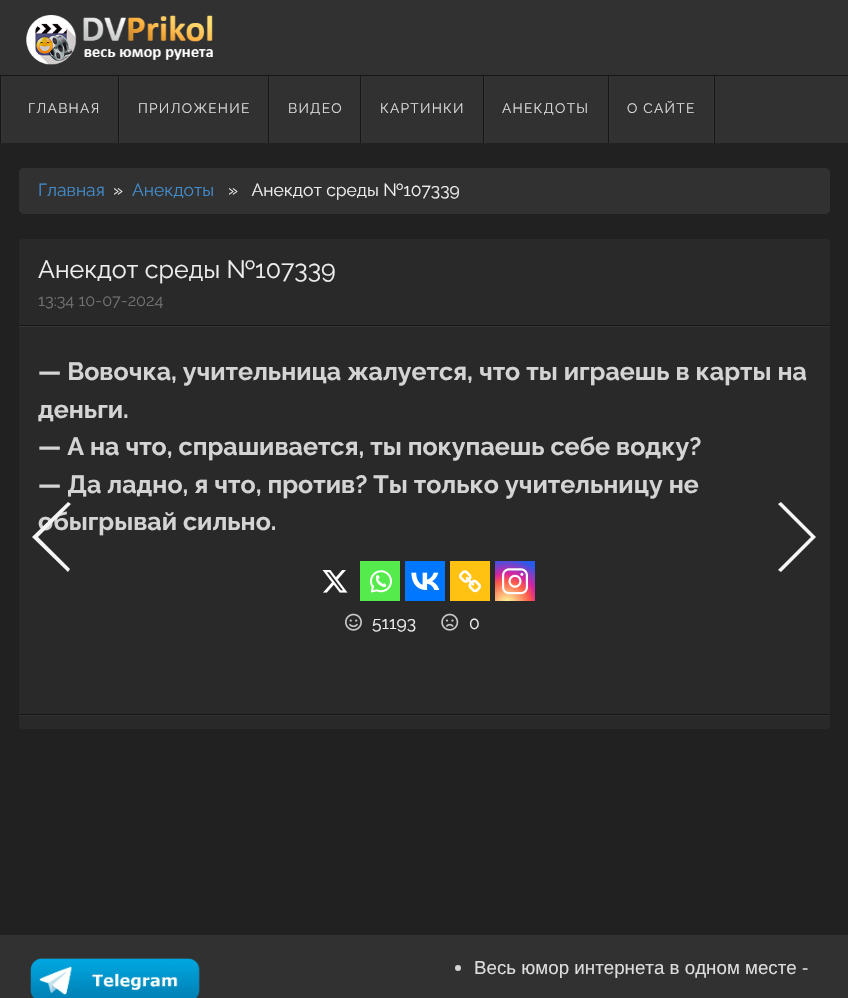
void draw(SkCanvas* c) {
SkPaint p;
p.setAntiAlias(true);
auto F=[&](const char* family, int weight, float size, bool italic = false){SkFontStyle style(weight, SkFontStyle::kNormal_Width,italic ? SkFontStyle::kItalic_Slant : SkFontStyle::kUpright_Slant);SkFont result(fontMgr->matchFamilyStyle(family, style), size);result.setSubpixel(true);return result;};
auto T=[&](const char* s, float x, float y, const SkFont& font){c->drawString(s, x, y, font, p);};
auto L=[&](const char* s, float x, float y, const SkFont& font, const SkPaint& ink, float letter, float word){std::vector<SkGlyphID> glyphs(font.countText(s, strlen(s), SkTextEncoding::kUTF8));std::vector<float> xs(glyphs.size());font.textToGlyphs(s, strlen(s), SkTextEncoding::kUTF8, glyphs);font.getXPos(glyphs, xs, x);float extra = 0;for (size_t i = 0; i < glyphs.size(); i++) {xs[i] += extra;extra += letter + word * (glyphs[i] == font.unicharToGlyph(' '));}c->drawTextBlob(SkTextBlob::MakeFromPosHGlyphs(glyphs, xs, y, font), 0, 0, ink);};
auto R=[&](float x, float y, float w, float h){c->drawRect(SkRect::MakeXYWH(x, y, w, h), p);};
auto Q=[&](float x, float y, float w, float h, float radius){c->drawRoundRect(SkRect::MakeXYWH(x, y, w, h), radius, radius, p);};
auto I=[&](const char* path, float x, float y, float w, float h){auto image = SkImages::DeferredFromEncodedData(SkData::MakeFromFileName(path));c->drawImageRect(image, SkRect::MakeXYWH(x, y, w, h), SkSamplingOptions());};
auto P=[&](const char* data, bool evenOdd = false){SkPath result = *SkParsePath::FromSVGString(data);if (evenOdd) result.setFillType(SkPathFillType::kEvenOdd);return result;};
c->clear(0xff212121);
p.setColor(0xff313131);
R(0,0,848,143);
I("1.png",26,15,187,50);
p.setColor(0xff161616);
R(0,75,848,1);
R(0,76,1,67);
p.setColor(0xff363636);
R(1,76,1,67);
auto f1 = F("Raleway",400,13.75);
p.setColor(0xffdddddd);
L("ГЛАВНАЯ",28,113,f1,p,1.25,0);
p.setColor(0xff161616);
R(118,76,1,67);
p.setColor(0xff363636);
R(119,76,1,67);
p.setColor(0xffdddddd);
L("ПРИЛОЖЕНИЕ",138,113,f1,p,1.25,0);
p.setColor(0xff161616);
R(268,76,1,67);
p.setColor(0xff363636);
R(269,76,1,67);
p.setColor(0xffdddddd);
L("ВИДЕО",288,113,f1,p,1.25,0);
p.setColor(0xff161616);
R(360,76,1,67);
p.setColor(0xff363636);
R(361,76,1,67);
p.setColor(0xffdddddd);
L("КАРТИНКИ",380,113,f1,p,1.25,0);
p.setColor(0xff161616);
R(483,76,1,67);
p.setColor(0xff363636);
R(484,76,1,67);
p.setColor(0xffdddddd);
L("АНЕКДОТЫ",502,113,f1,p,1.25,0);
p.setColor(0xff161616);
R(714,76,1,67);
R(608,76,1,67);
p.setColor(0xff363636);
R(713,76,1,67);
R(609,76,1,67);
p.setColor(0xffdddddd);
L("О САЙТЕ",627,113,f1,p,1.25,0);
p.setColor(0xff313131);
Q(19,168,811,46,5);
auto f2 = F("Raleway",400,17.5);
p.setColor(0xff428bca);
T("Главная",38,196,f2);
p.setColor(0xffeeeeee);
T("»",113,196,f2);
p.setColor(0xff428bca);
T("Анекдоты",132,196,f2);
p.setColor(0xffeeeeee);
T("»   Анекдот среды №107339",228,196,f2);
p.setColor(0xff292929);
Q(19,239,811,490,4);
p.setColor(0xff161616);
R(19,325,811,1);
auto f3 = F("Raleway",400,25);
p.setColor(0xffeeeeee);
T("Анекдот среды №107339",38,278,f3);
auto f4 = F("Raleway",400,16.25);
p.setColor(0xff727272);
T("13:34 10-07-2024",38,306,f4);
p.setColor(0xff363636);
R(19,326,811,1);
p.setColor(0xff161616);
R(19,714,811,1);
auto f5 = F("Raleway",700,25);
p.setColor(0xffd4d4d4);
T("— Вовочка, учительница жалуется, что ты играешь в карты на",38,380,f5);
T("деньги.",38,418,f5);
T("— А на что, спрашивается, ты покупаешь себе водку?",38,455,f5);
T("— Да ладно, я что, против? Ты только учительницу не",38,493,f5);
T("обыгрывай сильно.",38,530,f5);
p.setColor(0xfff5f5f5);
c->drawPath(P("M68 502l-36 35l36 35l2-3l-32-32l33-33z"),p);
c->drawPath(P("M781 572l35-35l-35-35l-3 2l33 33l-33 33z"),p);
I("2.png",322,570,26,23);
p.setColor(0xff55eb4c);
R(360,561,40,40);
I("3.png",370,570,22,23);
p.setColor(0xff0077ff);
R(405,561,40,40);
I("4.png",411,572,29,18);
p.setColor(0xffffc112);
R(450,561,40,40);
I("5.png",459,570,22,23);
{
const SkColor colors[] = {0xfffdf497,0xfffdf497,0xfffd5949,0xffd6249f,0xff285aeb};
const float stops[] = {0,.05,.45,.6,.9};
p.setShader(SkGradientShader::MakeRadial({507,604}, 51, colors, stops, 5, SkTileMode::kClamp));
p.setAlpha(255);
}
R(495,561,40,40);
I("6.png",502,568,26,27);
I("7.png",345,613,17,18);
p.setShader(nullptr);
p.setColor(0xffeeeeee);
T("51193",372,629,f2);
I("8.png",441,613,18,18);
T("0",469,629,f2);
p.setColor(0xff333333);
R(19,715,811,1);
p.setColor(0xff313131);
R(0,935,848,63);
I("9.png",30,958,170,40);
p.setColor(0xffd4d4d4);
c->drawCircle(458,968,3,p);
auto f6 = F("Liberation Sans",400,18.75);
p.setColor(0xffdddddd);
T("Весь юмор интернета в одном месте -",474,974,f6);
}
